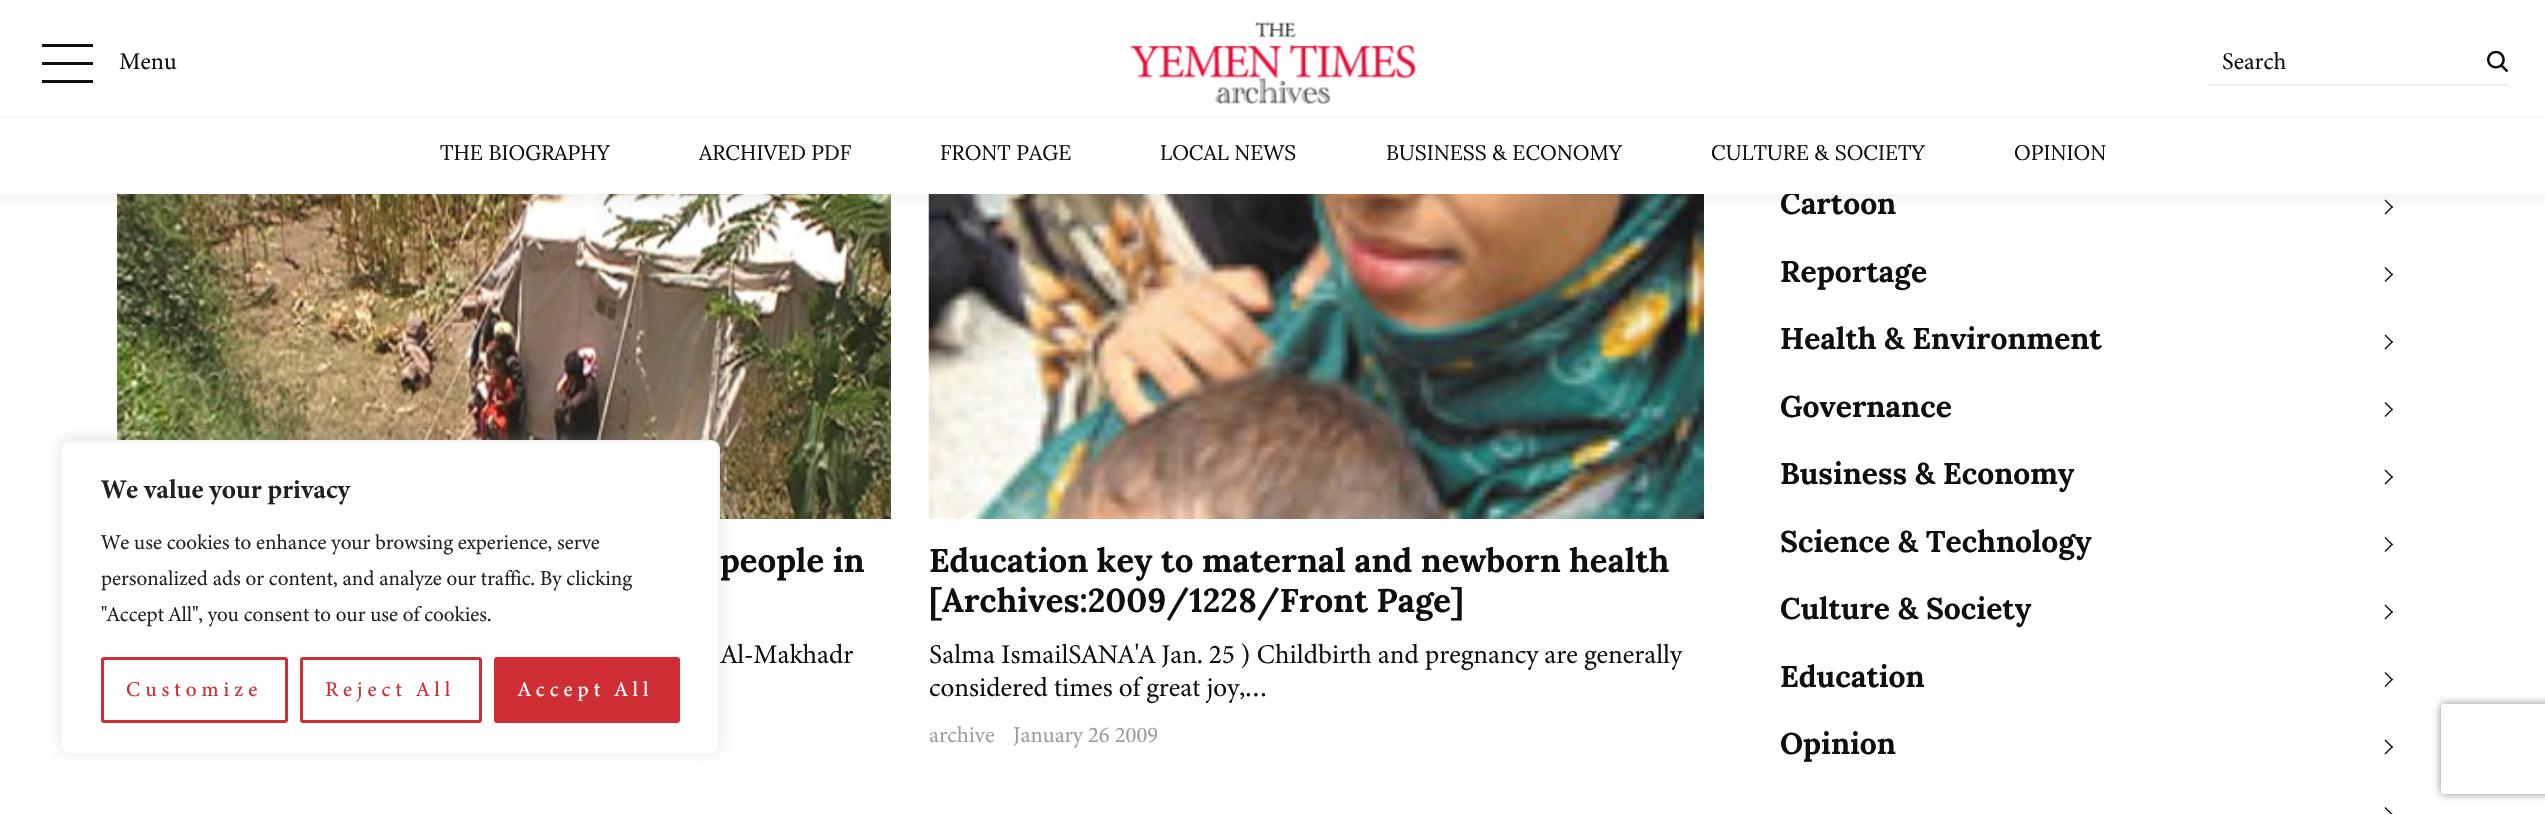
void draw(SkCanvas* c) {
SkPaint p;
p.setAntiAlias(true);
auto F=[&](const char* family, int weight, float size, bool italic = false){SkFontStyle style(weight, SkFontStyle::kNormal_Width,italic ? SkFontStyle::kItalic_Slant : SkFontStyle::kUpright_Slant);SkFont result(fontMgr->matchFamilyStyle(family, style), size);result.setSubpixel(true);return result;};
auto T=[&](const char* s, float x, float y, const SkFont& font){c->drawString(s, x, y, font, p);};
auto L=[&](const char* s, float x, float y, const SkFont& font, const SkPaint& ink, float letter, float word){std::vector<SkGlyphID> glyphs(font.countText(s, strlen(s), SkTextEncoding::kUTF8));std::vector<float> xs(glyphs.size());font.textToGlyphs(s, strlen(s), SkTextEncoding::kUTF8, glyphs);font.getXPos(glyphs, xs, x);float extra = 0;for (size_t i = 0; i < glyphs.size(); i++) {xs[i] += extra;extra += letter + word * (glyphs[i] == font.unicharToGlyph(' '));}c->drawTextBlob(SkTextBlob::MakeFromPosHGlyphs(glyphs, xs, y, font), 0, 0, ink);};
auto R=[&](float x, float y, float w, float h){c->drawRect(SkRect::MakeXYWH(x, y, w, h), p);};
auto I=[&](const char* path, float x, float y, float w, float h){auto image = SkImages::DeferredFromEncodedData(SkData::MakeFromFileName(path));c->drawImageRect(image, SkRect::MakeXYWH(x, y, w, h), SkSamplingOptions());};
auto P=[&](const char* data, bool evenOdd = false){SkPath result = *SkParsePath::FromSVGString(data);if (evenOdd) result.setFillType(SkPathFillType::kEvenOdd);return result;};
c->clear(0xffffffff);
I("3.png",117,194,774,325);
I("4.png",928,194,776,325);
p.setColor(0xff0f0f0f);
c->drawPath(P("M2385.5 199.5l7.5 7.5l-1 1l-7.5-7.5z"),p);
c->drawPath(P("M2392 206l1 1l-7.5 7.5l-1-1z"),p);
p.setColor(0x14646464);
p.setMaskFilter(SkMaskFilter::MakeBlur(kNormal_SkBlurStyle, 4.5));
c->drawRect(SkRect::MakeXYWH(0,8,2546,193),p);
p.setMaskFilter(nullptr);
auto f1 = F("Lora",700,30);
p.setColor(0xff0f0f0f);
T("Cartoon",1780,214,f1);
p.setColor(0xffffffff);
R(0,4,2545,190);
p.setColor(0xff0f0f0f);
R(42,44,51,3);
R(42,62,51,3);
R(42,80,51,3);
auto f2 = F("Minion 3",400,24);
T("Menu",119,69,f2);
I("1.png",1130,22,286,82);
I("2.png",2487,51,21,21);
p.setColor(0xffededed);
R(2208,84,300,2);
p.setColor(0xff0f0f0f);
T("Search",2222,69,f2);
p.setColor(0xfff7f7f7);
R(0,116,2545,2);
auto f3 = F("Lora",400,21);
p.setColor(0xff0f0f0f);
T("THE BIOGRAPHY",440,160,f3);
T("ARCHIVED PDF",699,160,f3);
T("FRONT PAGE",940,160,f3);
T("LOCAL NEWS",1160,160,f3);
T("BUSINESS & ECONOMY",1386,160,f3);
T("CULTURE & SOCIETY",1711,160,f3);
T("OPINION",2014,160,f3);
p.setColor(0x4dacabab);
p.setMaskFilter(SkMaskFilter::MakeBlur(kNormal_SkBlurStyle, 7.5));
c->drawRoundRect(SkRect::MakeXYWH(60,438,660,315),9,9,p);
p.setMaskFilter(nullptr);
p.setColor(0xffffffff);
c->drawRoundRect(SkRect::MakeXYWH(61,441,658,313),8,8,p);
p.setStroke(true);
p.setStrokeWidth(2);
p.setColor(0xfff4f4f4);
c->drawRoundRect(SkRect::MakeXYWH(61,441,658,313),8,8,p);
auto f4 = F("Minion 3",700,27);
p.setStroke(false);
p.setColor(0xff212121);
T("We value your privacy",101,498,f4);
auto f5 = F("Minion 3",400,21);
T("We use cookies to enhance your browsing experience, serve",101,549,f5);
T("personalized ads or content, and analyze our traffic. By clicking",101,585,f5);
T("\"Accept All\", you consent to our use of cookies.",101,621,f5);
p.setStroke(true);
p.setStrokeWidth(3);
p.setColor(0xffcf2e34);
c->drawRoundRect(SkRect::MakeXYWH(102.5,658.5,184,63),1.5,1.5,p);
auto f6 = F("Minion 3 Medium",500,21);
p.setStroke(false);
L("Customize",126,696,f6,p,5,0);
p.setStroke(true);
c->drawRoundRect(SkRect::MakeXYWH(301.5,658.5,179,63),1.5,1.5,p);
p.setStroke(false);
L("Reject All",325,696,f6,p,5,0);
c->drawRoundRect(SkRect::MakeXYWH(495.5,658.5,183,63),1.5,1.5,p);
p.setStroke(true);
c->drawRoundRect(SkRect::MakeXYWH(495.5,658.5,183,63),1.5,1.5,p);
p.setStroke(false);
p.setColor(0xffffffff);
L("Accept All",518,696,f6,p,5,0);
auto f7 = F("Lora",700,33);
p.setColor(0xff0f0f0f);
T("people in",720,572,f7);
auto f8 = F("Minion 3",400,27);
T("Al-Makhadr",721,663,f8);
T("Education key to maternal and newborn health",929,572,f7);
T("[Archives:2009/1228/Front Page]",929,612,f7);
T("Salma IsmailSANA'A Jan. 25 ) Childbirth and pregnancy are generally",929,663,f8);
T("considered times of great joy,…",929,696,f8);
auto f9 = F("Minion 3",400,22.5);
p.setColor(0xff9c9c9c);
T("archive",929,742,f9);
T("January 26 2009",1013,742,f9);
p.setColor(0xff0f0f0f);
T("Reportage",1780,282,f1);
c->drawPath(P("M2385.5 267l7.5 7.5l-1 1l-7.5-7.5z"),p);
c->drawPath(P("M2392 273.5l1 1l-7.5 7.5l-1-1z"),p);
T("Health & Environment",1780,349,f1);
c->drawPath(P("M2385.5 334.5l7.5 7.5l-1 1l-7.5-7.5z"),p);
c->drawPath(P("M2392 341l1 1l-7.5 7.5l-1-1z"),p);
T("Governance",1780,417,f1);
c->drawPath(P("M2385.5 402l7.5 7.5l-1 1l-7.5-7.5z"),p);
c->drawPath(P("M2392 408.5l1 1l-7.5 7.5l-1-1z"),p);
T("Business & Economy",1780,484,f1);
c->drawPath(P("M2385.5 469.5l7.5 7.5l-1 1l-7.5-7.5z"),p);
c->drawPath(P("M2392 476l1 1l-7.5 7.5l-1-1z"),p);
T("Science & Technology",1780,552,f1);
c->drawPath(P("M2385.5 537l7.5 7.5l-1 1l-7.5-7.5z"),p);
c->drawPath(P("M2392 543.5l1 1l-7.5 7.5l-1-1z"),p);
T("Culture & Society",1780,619,f1);
c->drawPath(P("M2385.5 604.5l7.5 7.5l-1 1l-7.5-7.5z"),p);
c->drawPath(P("M2392 611l1 1l-7.5 7.5l-1-1z"),p);
T("Education",1780,687,f1);
c->drawPath(P("M2385.5 672l7.5 7.5l-1 1l-7.5-7.5z"),p);
c->drawPath(P("M2392 678.5l1 1l-7.5 7.5l-1-1z"),p);
T("Opinion",1780,754,f1);
c->drawPath(P("M2385.5 739.5l7.5 7.5l-1 1l-7.5-7.5z"),p);
c->drawPath(P("M2392 746l1 1l-7.5 7.5l-1-1z"),p);
c->drawPath(P("M2385.5 807l7.5 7.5l-1 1l-7.5-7.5z"),p);
c->drawPath(P("M2392 813.5l1 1l-7.5 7.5l-1-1z"),p);
c->save();
c->clipPath(P("M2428 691h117v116h-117zm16 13h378c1.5 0 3 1.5 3 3v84c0 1.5-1.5 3-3 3h-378c-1.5 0-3-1.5-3-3v-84c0-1.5 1.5-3 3-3z",true),true);
p.setColor(0xff888888);
p.setMaskFilter(SkMaskFilter::MakeBlur(kNormal_SkBlurStyle, 4));
c->drawRoundRect(SkRect::MakeXYWH(2441,704,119,90),3,3,p);
p.setMaskFilter(nullptr);
c->restore();
}
